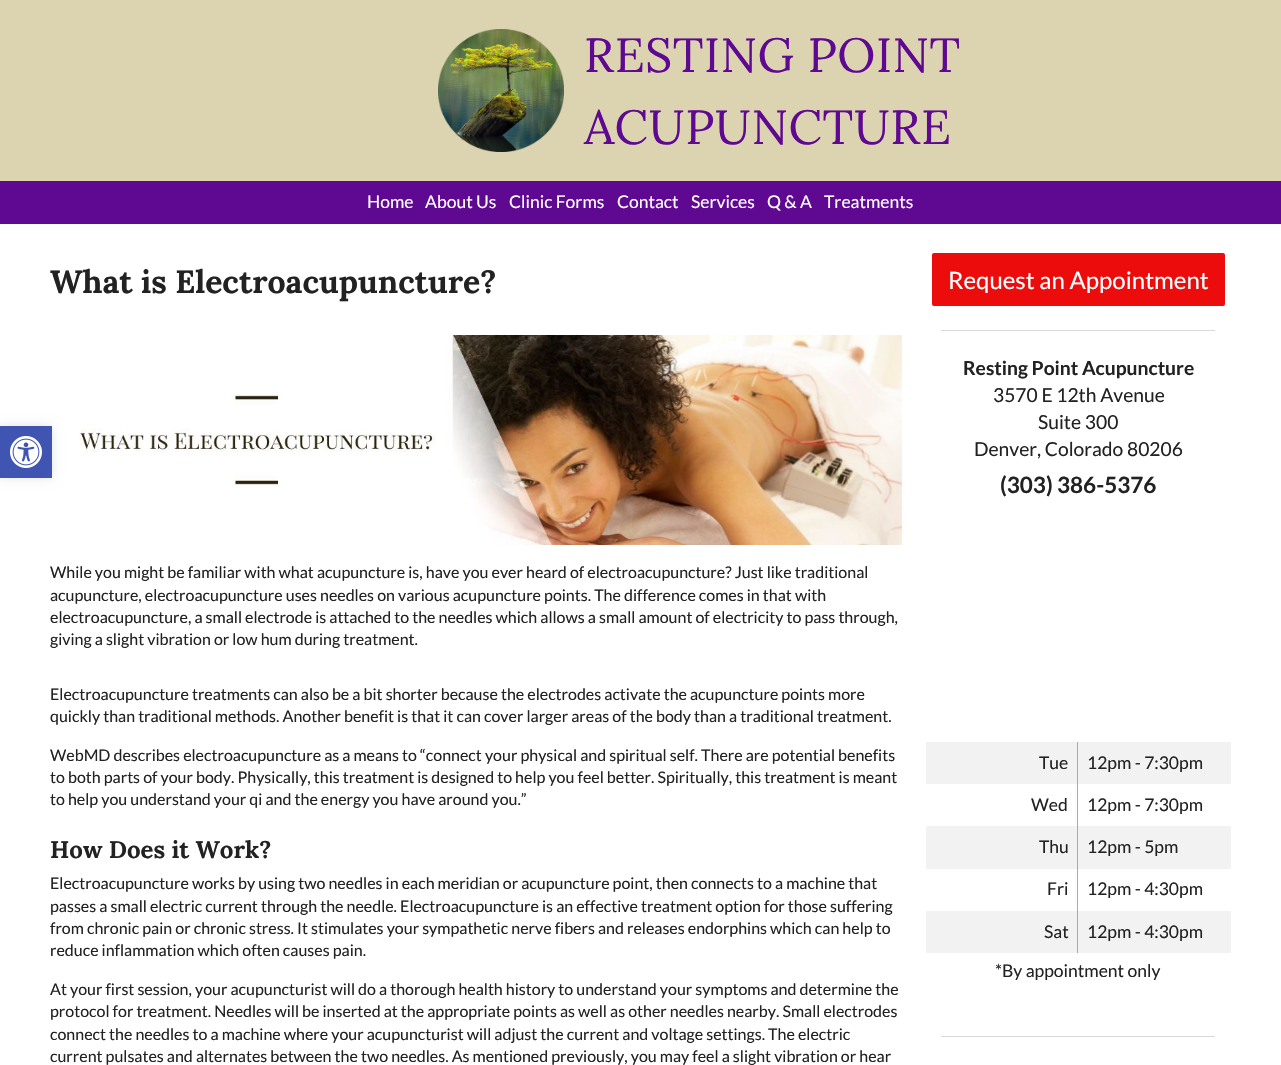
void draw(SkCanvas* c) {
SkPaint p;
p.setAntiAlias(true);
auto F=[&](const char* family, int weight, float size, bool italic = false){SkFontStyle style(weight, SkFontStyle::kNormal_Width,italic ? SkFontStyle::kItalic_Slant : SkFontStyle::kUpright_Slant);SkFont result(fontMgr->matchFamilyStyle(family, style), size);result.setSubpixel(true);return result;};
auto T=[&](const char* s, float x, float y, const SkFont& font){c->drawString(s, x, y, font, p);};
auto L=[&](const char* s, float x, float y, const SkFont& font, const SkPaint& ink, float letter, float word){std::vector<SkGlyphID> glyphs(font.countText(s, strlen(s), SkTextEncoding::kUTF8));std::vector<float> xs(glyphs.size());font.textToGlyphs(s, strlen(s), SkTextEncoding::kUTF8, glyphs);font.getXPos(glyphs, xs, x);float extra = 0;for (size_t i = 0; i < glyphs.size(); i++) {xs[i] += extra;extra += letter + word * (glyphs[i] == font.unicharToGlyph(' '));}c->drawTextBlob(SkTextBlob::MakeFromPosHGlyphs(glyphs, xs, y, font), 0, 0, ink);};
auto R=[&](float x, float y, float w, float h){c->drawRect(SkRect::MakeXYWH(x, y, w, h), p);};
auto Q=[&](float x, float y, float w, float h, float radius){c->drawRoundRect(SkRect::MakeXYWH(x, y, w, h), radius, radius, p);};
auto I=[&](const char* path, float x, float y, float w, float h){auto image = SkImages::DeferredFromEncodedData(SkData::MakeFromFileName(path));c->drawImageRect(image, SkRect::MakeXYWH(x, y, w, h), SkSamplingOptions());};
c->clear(0xffffffff);
p.setColor(0x1a000000);
p.setMaskFilter(SkMaskFilter::MakeBlur(kNormal_SkBlurStyle, 5));
c->drawRect(SkRect::MakeXYWH(0,426,52,52),p);
p.setMaskFilter(nullptr);
p.setColor(0xff4054b2);
R(0,426,52,52);
I("1.png",10,436,32,32);
p.setColor(0xffdcd4b0);
R(0,0,1281,181);
I("2.png",438,29,126,123);
auto f1 = F("Lora",400,48);
p.setColor(0xff5f0891);
L("RESTING POINT",584,72,f1,p,.5,0);
L("ACUPUNCTURE",584,144,f1,p,.5,0);
R(0,181,1281,43);
auto f2 = F("Lato",400,17.5);
p.setColor(0xffffffff);
T("Home",367,208,f2);
T("About Us",425,208,f2);
T("Clinic Forms",509,208,f2);
T("Contact",617,208,f2);
T("Services",691,208,f2);
T("Q & A",767,208,f2);
T("Treatments",824,208,f2);
auto f3 = F("Lora",700,32);
p.setColor(0xff222222);
T("What is Electroacupuncture?",50,293,f3);
I("3.png",79,335,823,210);
auto f4 = F("Lato",400,16);
T("While you might be familiar with what acupuncture is, have you ever heard of electroacupuncture? Just like traditional",50,578,f4);
T("acupuncture, electroacupuncture uses needles on various acupuncture points. The difference comes in that with",50,601,f4);
T("electroacupuncture, a small electrode is attached to the needles which allows a small amount of electricity to pass through,",50,623,f4);
T("giving a slight vibration or low hum during treatment.",50,645,f4);
T("Electroacupuncture treatments can also be a bit shorter because the electrodes activate the acupuncture points more",50,700,f4);
T("quickly than traditional methods. Another benefit is that it can cover larger areas of the body than a traditional treatment.",50,722,f4);
T("WebMD describes electroacupuncture as a means to “connect your physical and spiritual self. There are potential benefits",50,761,f4);
T("to both parts of your body. Physically, this treatment is designed to help you feel better. Spiritually, this treatment is meant",50,783,f4);
T("to help you understand your qi and the energy you have around you.”",50,805,f4);
auto f5 = F("Lora",700,24);
T("How Does it Work?",50,858,f5);
T("Electroacupuncture works by using two needles in each meridian or acupuncture point, then connects to a machine that",50,889,f4);
T("passes a small electric current through the needle. Electroacupuncture is an effective treatment option for those suffering",50,912,f4);
T("from chronic pain or chronic stress. It stimulates your sympathetic nerve fibers and releases endorphins which can help to",50,934,f4);
T("reduce inflammation which often causes pain.",50,956,f4);
T("At your first session, your acupuncturist will do a thorough health history to understand your symptoms and determine the",50,995,f4);
T("protocol for treatment. Needles will be inserted at the appropriate points as well as other needles nearby. Small electrodes",50,1017,f4);
T("connect the needles to a machine where your acupuncturist will adjust the current and voltage settings. The electric",50,1040,f4);
T("current pulsates and alternates between the two needles. As mentioned previously, you may feel a slight vibration or hear",50,1062,f4);
p.setColor(0xffed0c0c);
Q(932,253,293,53,2);
auto f6 = F("Lato",400,24);
p.setColor(0xffffffff);
T("Request an Appointment",948,289,f6);
p.setColor(0xffd9d9d9);
R(941,330,274,1);
auto f7 = F("Lato",700,19.25);
p.setColor(0xff222222);
T("Resting Point Acupuncture",963,375,f7);
auto f8 = F("Lato",400,19.25);
T("3570 E 12th Avenue",993,402,f8);
T("Suite 300",1038,429,f8);
T("Denver, Colorado 80206",974,456,f8);
auto f9 = F("Lato",700,22.5);
T("(303) 386-5376",1000,493,f9);
p.setColor(0xfff2f2f2);
R(926,742,305,42);
R(926,826,305,43);
R(926,911,305,42);
p.setColor(0xffaaaaaa);
R(1077,742,1,211);
p.setColor(0xff222222);
T("Tue",1039,769,f2);
T("12pm - 7:30pm",1087,769,f2);
T("Wed",1031,811,f2);
T("12pm - 7:30pm",1087,811,f2);
T("Thu",1039,853,f2);
T("12pm - 5pm",1087,853,f2);
T("Fri",1047,895,f2);
T("12pm - 4:30pm",1087,895,f2);
T("Sat",1044,938,f2);
T("12pm - 4:30pm",1087,938,f2);
T("*By appointment only",995,977,f2);
p.setColor(0xffd9d9d9);
R(941,1036,274,1);
}
